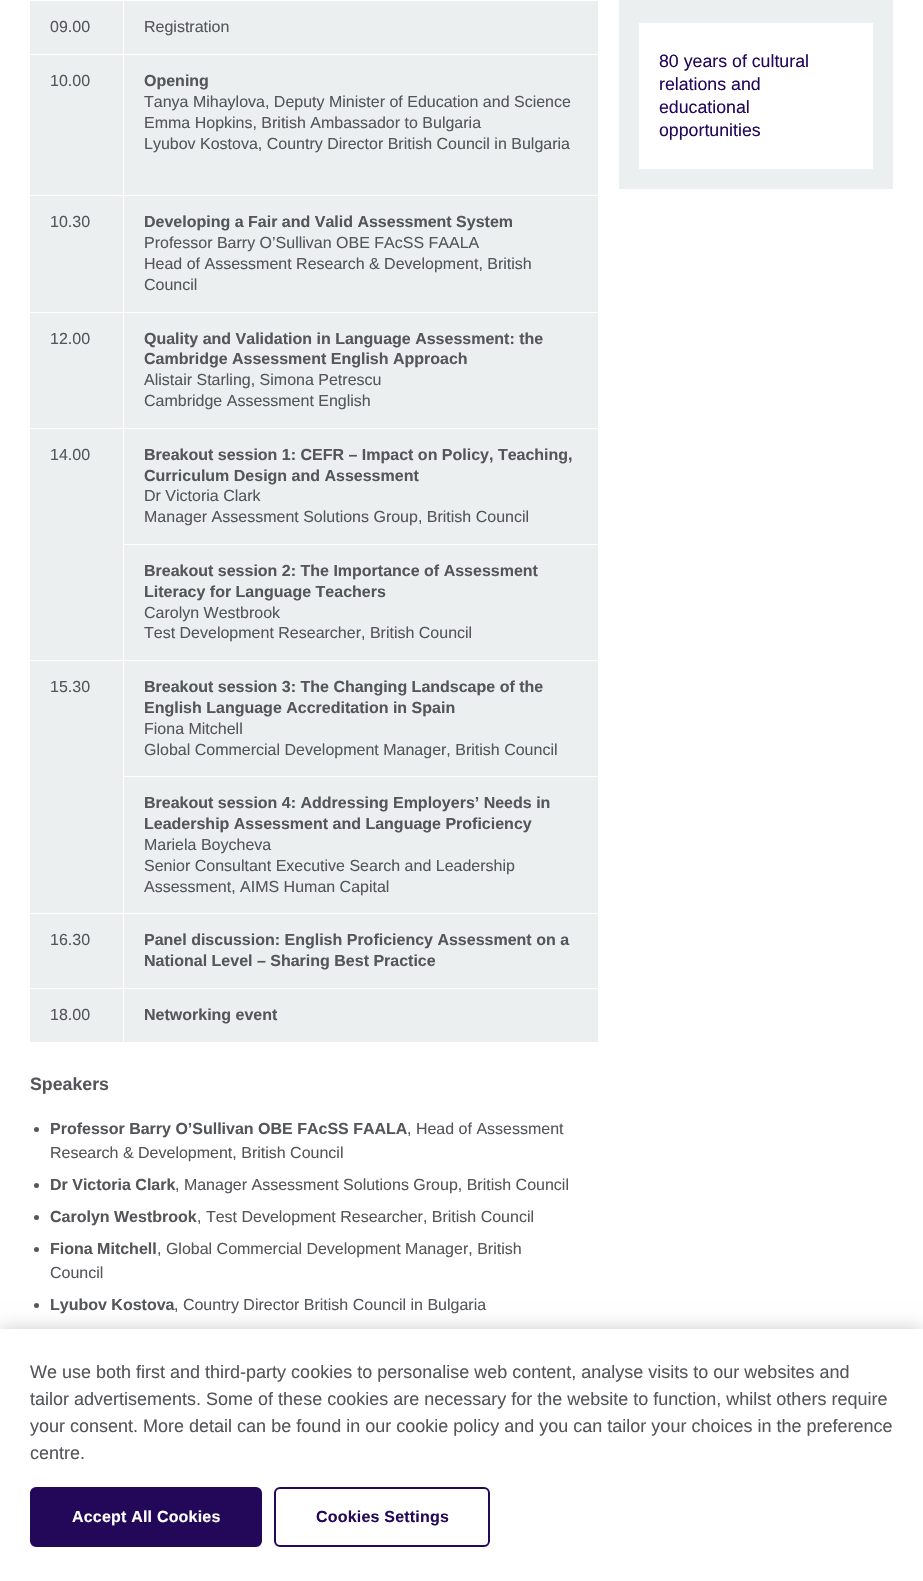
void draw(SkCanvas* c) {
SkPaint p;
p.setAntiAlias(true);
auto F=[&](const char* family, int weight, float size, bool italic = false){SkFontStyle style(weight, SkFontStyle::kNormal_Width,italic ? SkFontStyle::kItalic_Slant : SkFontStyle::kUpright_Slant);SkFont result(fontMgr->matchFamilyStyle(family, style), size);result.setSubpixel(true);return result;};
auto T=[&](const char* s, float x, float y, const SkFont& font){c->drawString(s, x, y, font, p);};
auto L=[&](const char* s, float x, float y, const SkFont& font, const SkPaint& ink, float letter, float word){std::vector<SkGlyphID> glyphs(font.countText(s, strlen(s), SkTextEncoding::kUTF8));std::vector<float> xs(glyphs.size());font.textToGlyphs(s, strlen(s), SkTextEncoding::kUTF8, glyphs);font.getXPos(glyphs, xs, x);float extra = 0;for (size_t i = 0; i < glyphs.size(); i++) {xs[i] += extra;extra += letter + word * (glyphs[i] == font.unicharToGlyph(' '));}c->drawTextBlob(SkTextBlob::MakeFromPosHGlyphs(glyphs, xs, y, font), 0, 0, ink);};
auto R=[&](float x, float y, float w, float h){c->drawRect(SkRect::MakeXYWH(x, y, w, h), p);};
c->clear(0xffffffff);
p.setColor(0xffebeff0);
R(30,1,568,1041);
p.setColor(0xffffffff);
R(123,544,476,1);
R(123,776,476,1);
R(123,988,1,55);
R(123,988,476,1);
R(123,913,1,76);
R(123,913,476,1);
R(123,660,1,254);
R(123,660,476,1);
R(123,428,1,233);
R(123,428,476,1);
R(123,312,1,117);
R(123,312,476,1);
R(123,195,1,118);
R(123,195,476,1);
R(123,54,1,142);
R(123,54,476,1);
R(123,0,1,55);
R(30,54,94,1);
auto f1 = F("Liberation Sans",400,16);
p.setColor(0xff54565a);
T("09.00",50,32,f1);
T("Registration",144,32,f1);
p.setColor(0xffffffff);
R(30,195,94,1);
p.setColor(0xff54565a);
T("10.00",50,86,f1);
auto f2 = F("Liberation Sans",700,16);
T("Opening",144,86,f2);
T("Tanya Mihaylova, Deputy Minister of Education and Science",144,107,f1);
T("Emma Hopkins, British Ambassador to Bulgaria",144,128,f1);
T("Lyubov Kostova, Country Director British Council in Bulgaria",144,149,f1);
p.setColor(0xffffffff);
R(30,312,94,1);
p.setColor(0xff54565a);
T("10.30",50,227,f1);
T("Developing a Fair and Valid Assessment System",144,227,f2);
T("Professor Barry O’Sullivan OBE FAcSS FAALA",144,248,f1);
T("Head of Assessment Research & Development, British",144,269,f1);
T("Council",144,290,f1);
p.setColor(0xffffffff);
R(30,428,94,1);
p.setColor(0xff54565a);
T("12.00",50,344,f1);
T("Quality and Validation in Language Assessment: the",144,344,f2);
T("Cambridge Assessment English Approach",144,364,f2);
T("Alistair Starling, Simona Petrescu",144,385,f1);
T("Cambridge Assessment English",144,406,f1);
p.setColor(0xffffffff);
R(30,660,94,1);
p.setColor(0xff54565a);
T("14.00",50,460,f1);
T("Breakout session 1: CEFR – Impact on Policy, Teaching,",144,460,f2);
T("Curriculum Design and Assessment",144,481,f2);
T("Dr Victoria Clark",144,501,f1);
T("Manager Assessment Solutions Group, British Council",144,522,f1);
T("Breakout session 2: The Importance of Assessment",144,576,f2);
T("Literacy for Language Teachers",144,597,f2);
T("Carolyn Westbrook",144,618,f1);
T("Test Development Researcher, British Council",144,638,f1);
p.setColor(0xffffffff);
R(30,913,94,1);
p.setColor(0xff54565a);
T("15.30",50,692,f1);
T("Breakout session 3: The Changing Landscape of the",144,692,f2);
T("English Language Accreditation in Spain",144,713,f2);
T("Fiona Mitchell",144,734,f1);
T("Global Commercial Development Manager, British Council",144,755,f1);
T("Breakout session 4: Addressing Employers’ Needs in",144,808,f2);
T("Leadership Assessment and Language Proficiency",144,829,f2);
T("Mariela Boycheva",144,850,f1);
T("Senior Consultant Executive Search and Leadership",144,871,f1);
T("Assessment, AIMS Human Capital",144,892,f1);
p.setColor(0xffffffff);
R(30,988,94,1);
p.setColor(0xff54565a);
T("16.30",50,945,f1);
T("Panel discussion: English Proficiency Assessment on a",144,945,f2);
T("National Level – Sharing Best Practice",144,966,f2);
T("18.00",50,1020,f1);
T("Networking event",144,1020,f2);
auto f3 = F("Liberation Sans",700,17.75);
T("Speakers",30,1090,f3);
c->drawCircle(36.5,1129.5,2.5,p);
T("Professor Barry O’Sullivan OBE FAcSS FAALA",50,1134,f2);
T(", Head of Assessment",407,1134,f1);
T("Research & Development, British Council",50,1158,f1);
c->drawCircle(36.5,1185.5,2.5,p);
T("Dr Victoria Clark",50,1190,f2);
T(", Manager Assessment Solutions Group, British Council",175,1190,f1);
c->drawCircle(36.5,1217.5,2.5,p);
T("Carolyn Westbrook",50,1222,f2);
T(", Test Development Researcher, British Council",197,1222,f1);
c->drawCircle(36.5,1249.5,2.5,p);
T("Fiona Mitchell",50,1254,f2);
T(", Global Commercial Development Manager, British",157,1254,f1);
T("Council",50,1278,f1);
c->drawCircle(36.5,1305.5,2.5,p);
T("Lyubov Kostova",50,1310,f2);
T(", Country Director British Council in Bulgaria",174,1310,f1);
p.setColor(0xffebeff0);
R(619,0,274,189);
p.setColor(0xffffffff);
R(639,23,234,146);
auto f4 = F("Liberation Sans",400,17.75);
p.setColor(0xff23085a);
T("80 years of cultural",659,67,f4);
T("relations and",659,90,f4);
T("educational",659,113,f4);
T("opportunities",659,136,f4);
p.setColor(0x33000000);
p.setMaskFilter(SkMaskFilter::MakeBlur(kNormal_SkBlurStyle, 9));
c->drawRect(SkRect::MakeXYWH(0,1329,923,252),p);
p.setMaskFilter(nullptr);
p.setColor(0xffffffff);
R(0,1329,923,252);
auto f5 = F("Liberation Sans",400,18);
p.setColor(0xff54565a);
T("We use both first and third-party cookies to personalise web content, analyse visits to our websites and",30,1378,f5);
T("tailor advertisements. Some of these cookies are necessary for the website to function, whilst others require",30,1405,f5);
T("your consent. More detail can be found in our cookie policy and you can tailor your choices in the preference",30,1432,f5);
T("centre.",30,1459,f5);
p.setColor(0xff23085a);
c->drawRoundRect(SkRect::MakeXYWH(31,1488,230,58),5,5,p);
p.setStroke(true);
p.setStrokeWidth(2);
c->drawRoundRect(SkRect::MakeXYWH(31,1488,230,58),5,5,p);
p.setStroke(false);
p.setColor(0xffffffff);
L("Accept All Cookies",72,1522,f2,p,.2,0);
p.setStroke(true);
p.setColor(0xff23085a);
c->drawRoundRect(SkRect::MakeXYWH(275,1488,214,58),5,5,p);
p.setStroke(false);
L("Cookies Settings",316,1522,f2,p,.2,0);
}
